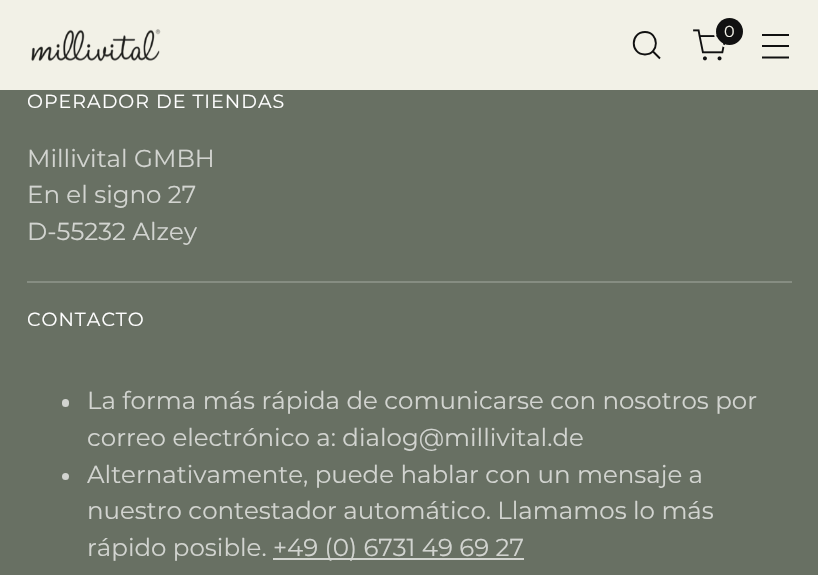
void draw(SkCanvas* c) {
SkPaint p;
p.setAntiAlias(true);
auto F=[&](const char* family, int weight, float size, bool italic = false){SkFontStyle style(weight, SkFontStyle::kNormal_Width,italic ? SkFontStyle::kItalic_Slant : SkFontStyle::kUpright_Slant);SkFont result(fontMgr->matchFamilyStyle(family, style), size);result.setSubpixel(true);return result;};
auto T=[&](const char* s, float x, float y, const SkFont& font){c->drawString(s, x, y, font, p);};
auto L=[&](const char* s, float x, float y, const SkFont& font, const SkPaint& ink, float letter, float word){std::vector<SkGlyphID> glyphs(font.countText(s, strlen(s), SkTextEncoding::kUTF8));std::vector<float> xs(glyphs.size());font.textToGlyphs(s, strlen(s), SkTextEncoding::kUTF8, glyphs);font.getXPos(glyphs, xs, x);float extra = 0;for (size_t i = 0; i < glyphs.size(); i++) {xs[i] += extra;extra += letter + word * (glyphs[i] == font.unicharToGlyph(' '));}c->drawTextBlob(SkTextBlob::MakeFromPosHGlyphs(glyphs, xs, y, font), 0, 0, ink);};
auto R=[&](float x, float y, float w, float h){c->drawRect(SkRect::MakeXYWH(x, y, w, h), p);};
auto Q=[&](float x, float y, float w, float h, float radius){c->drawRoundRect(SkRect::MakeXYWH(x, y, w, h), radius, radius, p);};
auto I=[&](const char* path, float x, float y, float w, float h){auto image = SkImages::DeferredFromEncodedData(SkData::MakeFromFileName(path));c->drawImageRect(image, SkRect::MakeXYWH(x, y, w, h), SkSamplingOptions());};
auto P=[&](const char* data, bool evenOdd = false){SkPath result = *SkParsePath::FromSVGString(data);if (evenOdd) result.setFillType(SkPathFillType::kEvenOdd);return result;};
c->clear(0xff687063);
p.setColor(0xfff2f1e7);
R(0,0,818,90);
I("1.png",31,29,130,33);
p.setStroke(true);
p.setStrokeWidth(1.9);
p.setStrokeCap(SkPaint::kRound_Cap);
p.setColor(0xff111111);
c->drawPath(P("M645 54.5c14.5 0 14.5-22.5 0-22.5c-15 0-15 22.5 0 22.5z"),p);
p.setStrokeCap(SkPaint::kButt_Cap);
c->drawPath(P("M653 51.5l7 7"),p);
I("2.png",693,29,32,32);
p.setStrokeWidth(2);
p.setColor(0xfff2f1e7);
c->drawRoundRect(SkRect::MakeXYWH(715,18,30,29),14.5,14.5,p);
p.setStroke(false);
p.setColor(0xff111111);
c->drawCircle(729.5,31.5,13.5,p);
auto f1 = F("Montserrat",400,16);
p.setColor(0xfff2f1e7);
T("0",724,37,f1);
p.setStroke(true);
p.setStrokeWidth(1.9);
p.setColor(0xff111111);
c->drawPath(P("M762 46h27m-27-11h27m-27 22.5h27"),p);
p.setStroke(false);
p.setColor(0xff868d82);
R(27,281,765,2);
auto f2 = F("Montserrat",400,19);
p.setColor(0xffffffff);
L("OPERADOR DE TIENDAS",27,108,f2,p,1,0);
auto f3 = F("Montserrat",400,24.5);
p.setColor(0xffd2d4d0);
T("Millivital GMBH",27,167,f3);
T("En el signo 27",27,203,f3);
T("D-55232 Alzey",27,240,f3);
p.setColor(0xffffffff);
L("CONTACTO",27,326,f2,p,1,0);
p.setColor(0xffd2d4d0);
Q(62,399,7,8,3.5);
T("La forma más rápida de comunicarse con nosotros por",87,409,f3);
T("correo electrónico a: dialog@millivital.de",87,446,f3);
c->drawCircle(65.5,476.5,3.5,p);
T("Alternativamente, puede hablar con un mensaje a",87,483,f3);
T("nuestro contestador automático. Llamamos lo más",87,519,f3);
T("rápido posible.",87,556,f3);
R(273,558,251,2);
T("+49 (0) 6731 49 69 27",273,556,f3);
}
